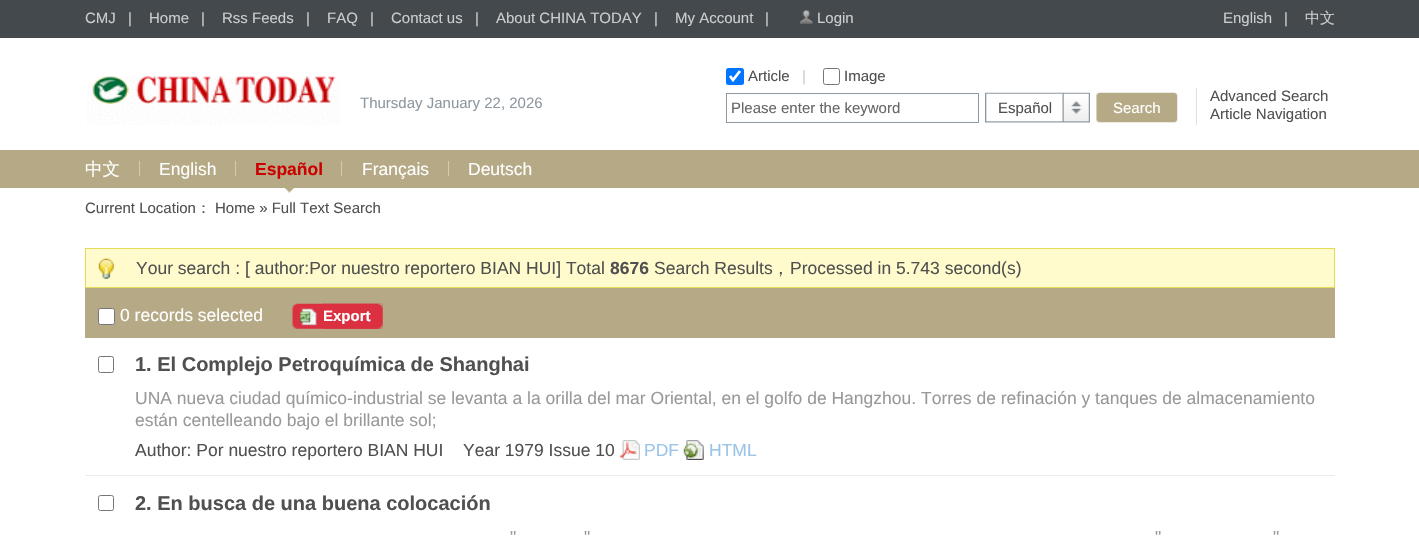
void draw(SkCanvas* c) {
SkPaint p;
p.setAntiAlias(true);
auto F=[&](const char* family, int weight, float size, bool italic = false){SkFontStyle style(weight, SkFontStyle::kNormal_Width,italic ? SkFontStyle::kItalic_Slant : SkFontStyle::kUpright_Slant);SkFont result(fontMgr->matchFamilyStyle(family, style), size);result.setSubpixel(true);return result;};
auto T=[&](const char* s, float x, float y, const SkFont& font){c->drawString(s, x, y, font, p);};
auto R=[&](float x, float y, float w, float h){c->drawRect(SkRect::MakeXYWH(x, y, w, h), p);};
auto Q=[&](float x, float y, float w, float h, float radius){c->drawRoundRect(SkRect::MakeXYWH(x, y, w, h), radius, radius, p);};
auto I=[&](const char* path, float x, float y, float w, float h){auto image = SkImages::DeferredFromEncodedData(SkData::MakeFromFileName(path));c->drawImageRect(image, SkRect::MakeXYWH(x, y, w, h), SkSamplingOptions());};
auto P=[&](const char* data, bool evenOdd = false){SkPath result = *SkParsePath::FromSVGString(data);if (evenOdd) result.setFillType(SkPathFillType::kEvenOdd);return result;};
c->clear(0xffffffff);
p.setColor(0xff44494d);
R(0,0,1419,38);
auto f1 = F("Liberation Sans",400,15);
p.setColor(0xffcccccc);
T("CMJ",85,23,f1);
T("|",128,23,f1);
T("Home",149,23,f1);
T("|",201,23,f1);
T("Rss Feeds",222,23,f1);
T("|",306,23,f1);
T("FAQ",327,23,f1);
T("|",370,23,f1);
T("Contact us",391,23,f1);
T("|",475,23,f1);
T("About CHINA TODAY",496,23,f1);
T("|",654,23,f1);
T("My Account",675,23,f1);
T("|",765,23,f1);
I("1.png",800,10,13,14);
T("Login",817,23,f1);
T("English",1223,23,f1);
T("|",1284,23,f1);
auto f2 = F("WenQuanYi Zen Hei",500,15);
T("中文",1305,23,f2);
I("2.png",87,76,254,49);
p.setColor(0xff8e98a1);
T("Thursday January 22, 2026",360,108,f1);
p.setColor(0xff0075ff);
Q(726,68,18,17,2.5);
p.setStroke(true);
p.setStrokeWidth(2.8);
p.setColor(0xffffffff);
c->drawPath(P("M730 76l3 4l7-9"),p);
p.setStroke(false);
p.setColor(0xff505050);
T("Article",748,81,f1);
p.setColor(0xffcccccc);
T("|",802,81,f1);
p.setStroke(true);
p.setStrokeWidth(1);
p.setColor(0xff767676);
c->drawRoundRect(SkRect::MakeXYWH(823.5,68.5,16,16),2,2,p);
p.setStroke(false);
p.setColor(0xff505050);
T("Image",844,81,f1);
p.setStroke(true);
p.setColor(0xff8e98a1);
c->drawRect(SkRect::MakeXYWH(726.5,93.5,252,29),p);
p.setStroke(false);
p.setColor(0xff666666);
T("Please enter the keyword",731,113,f1);
I("3.png",985,92,105,31);
p.setColor(0xff505050);
T("Español",998,113,f1);
I("4.png",1096,92,82,31);
p.setColor(0xffffffff);
T("Search",1113,113,f1);
p.setColor(0xffe0e0e0);
R(1196,88,1,37);
p.setColor(0xff505050);
T("Advanced Search",1210,101,f1);
T("Article Navigation",1210,119,f1);
p.setColor(0xffb5aa85);
R(0,150,1419,38);
auto f3 = F("WenQuanYi Zen Hei",500,17.5);
p.setColor(0xffffffff);
T("中文",85,175,f3);
p.setColor(0xffd4cbad);
R(139,161,1,15);
auto f4 = F("Liberation Sans",400,17.5);
p.setColor(0xffffffff);
T("English",159,175,f4);
p.setColor(0xffd4cbad);
R(235,161,1,15);
I("5.png",285,188,9,5);
auto f5 = F("Liberation Sans",700,17.5);
p.setColor(0xffcc0000);
T("Español",255,175,f5);
p.setColor(0xffd4cbad);
R(341,161,1,15);
p.setColor(0xffffffff);
T("Français",362,175,f4);
p.setColor(0xffd4cbad);
R(448,161,1,15);
p.setColor(0xffffffff);
T("Deutsch",468,175,f4);
p.setColor(0xff505050);
T("Current Location",85,213,f1);
T("：",196,213,f2);
T("Home » Full Text Search",215,213,f1);
p.setColor(0xfffffbcc);
R(86,249,1248,38);
I("6.png",98,258,16,21);
p.setStroke(true);
p.setColor(0xffe6db55);
c->drawRect(SkRect::MakeXYWH(85.5,248.5,1249,39),p);
p.setStroke(false);
p.setColor(0xff505050);
T("Your search : [ author:Por nuestro reportero BIAN HUI] Total",136,274,f4);
T("8676",610,274,f5);
T("Search Results",654,274,f4);
T("，",772,274,f3);
T("Processed in 5.743 second(s)",790,274,f4);
p.setColor(0xffb5aa85);
R(85,288,1250,50);
p.setColor(0xffffffff);
c->drawRoundRect(SkRect::MakeXYWH(98.5,308.5,16,16),2,2,p);
p.setStroke(true);
p.setColor(0xff767676);
c->drawRoundRect(SkRect::MakeXYWH(98.5,308.5,16,16),2,2,p);
p.setStroke(false);
p.setColor(0xffffffff);
T("0 records selected",120,321,f4);
I("7.png",292,303,91,26);
I("8.png",322,303,61,26);
auto f6 = F("Liberation Sans",700,15);
T("Export",323,321,f6);
p.setColor(0xffececec);
R(85,475,1250,1);
p.setStroke(true);
p.setColor(0xff767676);
c->drawRoundRect(SkRect::MakeXYWH(98.5,356.5,15,16),2,2,p);
auto f7 = F("Liberation Sans",700,20);
p.setStroke(false);
p.setColor(0xff505050);
T("1. El Complejo Petroquímica de Shanghai",135,371,f7);
p.setColor(0xff999999);
T("UNA nueva ciudad químico-industrial se levanta a la orilla del mar Oriental, en el golfo de Hangzhou. Torres de refinación y tanques de almacenamiento",135,404,f4);
T("están centelleando bajo el brillante sol;",135,426,f4);
p.setColor(0xff505050);
T("Author: Por nuestro reportero BIAN HUI",135,456,f4);
T("Year 1979 Issue 10",463,456,f4);
I("9.png",620,440,20,20);
p.setColor(0xff9bc4e8);
T("PDF",644,456,f4);
I("10.png",683,440,21,20);
T("HTML",709,456,f4);
p.setStroke(true);
p.setColor(0xff767676);
c->drawRoundRect(SkRect::MakeXYWH(98.5,495.5,15,15),2,2,p);
p.setStroke(false);
p.setColor(0xff505050);
T("2. En busca de una buena colocación",135,510,f7);
p.setColor(0xff999999);
T("\"",510,543,f4);
T("\"",584,543,f4);
T("\"",1155,543,f4);
T("\"",1273,543,f4);
}
